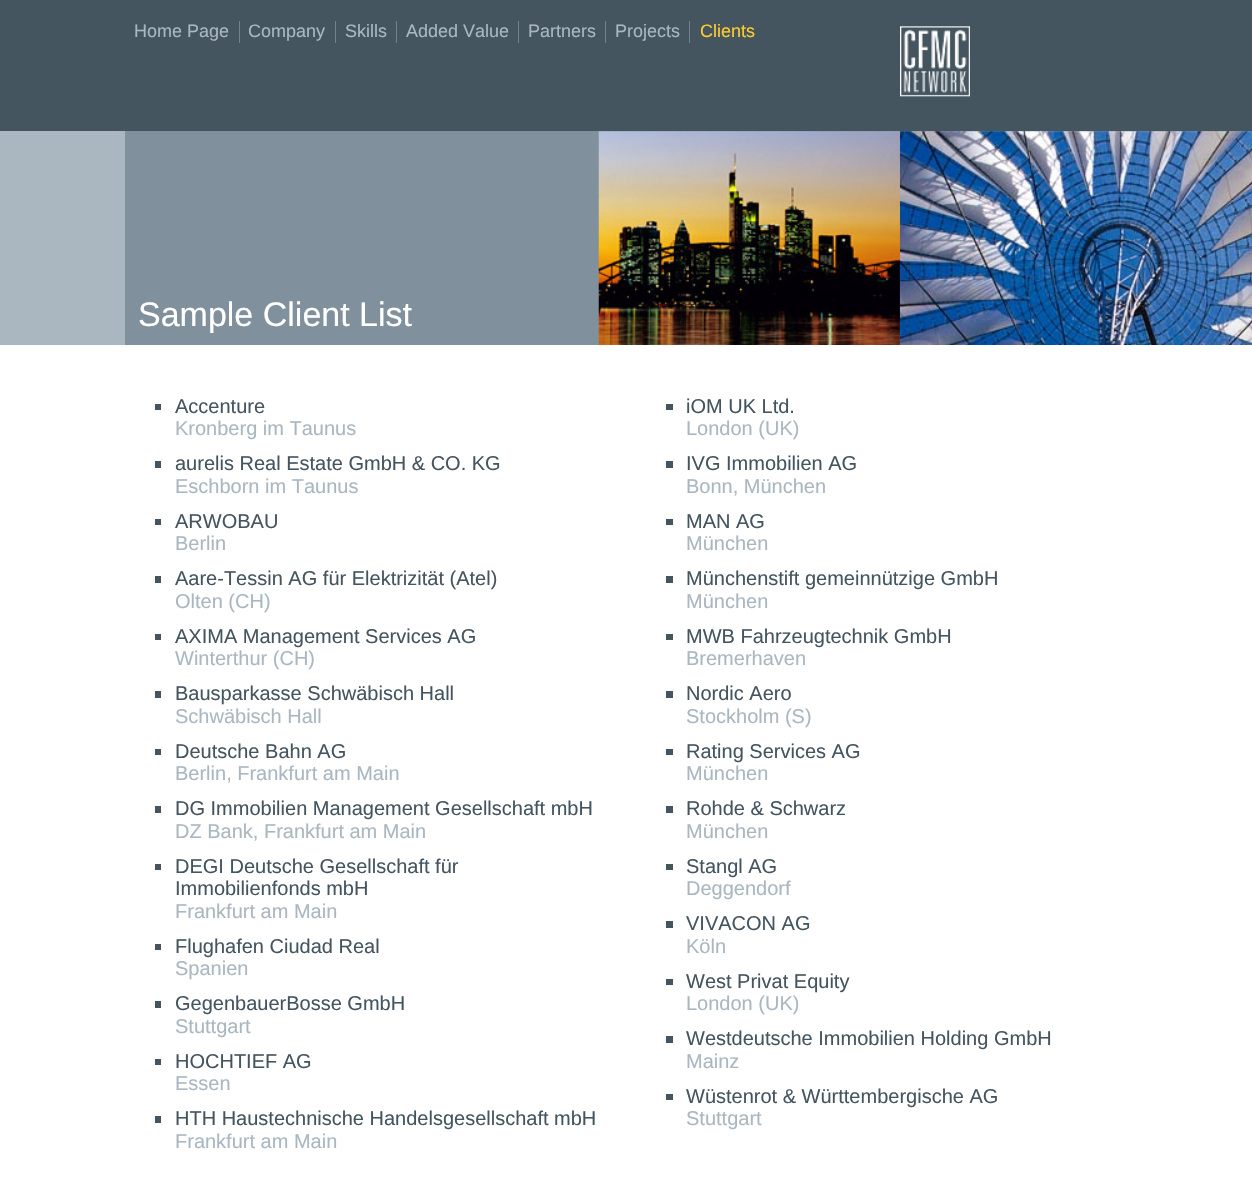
void draw(SkCanvas* c) {
SkPaint p;
p.setAntiAlias(true);
auto F=[&](const char* family, int weight, float size, bool italic = false){SkFontStyle style(weight, SkFontStyle::kNormal_Width,italic ? SkFontStyle::kItalic_Slant : SkFontStyle::kUpright_Slant);SkFont result(fontMgr->matchFamilyStyle(family, style), size);result.setSubpixel(true);return result;};
auto T=[&](const char* s, float x, float y, const SkFont& font){c->drawString(s, x, y, font, p);};
auto R=[&](float x, float y, float w, float h){c->drawRect(SkRect::MakeXYWH(x, y, w, h), p);};
auto I=[&](const char* path, float x, float y, float w, float h){auto image = SkImages::DeferredFromEncodedData(SkData::MakeFromFileName(path));c->drawImageRect(image, SkRect::MakeXYWH(x, y, w, h), SkSamplingOptions());};
c->clear(0xff455560);
auto f1 = F("Liberation Sans",400,18);
p.setColor(0xffaab7c1);
T("Home Page",134,37,f1);
T("Company",248,37,f1);
p.setColor(0xff73828f);
R(239,21,1,22);
p.setColor(0xffaab7c1);
T("Skills",345,37,f1);
p.setColor(0xff73828f);
R(335,21,1,22);
p.setColor(0xffaab7c1);
T("Added Value",406,37,f1);
p.setColor(0xff73828f);
R(396,21,1,22);
p.setColor(0xffaab7c1);
T("Partners",528,37,f1);
p.setColor(0xff73828f);
R(518,21,1,22);
p.setColor(0xffaab7c1);
T("Projects",615,37,f1);
p.setColor(0xff73828f);
R(605,21,1,22);
p.setColor(0xffffcc2f);
T("Clients",700,37,f1);
p.setColor(0xff73828f);
R(689,21,1,22);
I("1.png",900,26,70,71);
p.setColor(0xff80909d);
R(125,131,1127,214);
I("2.png",598,131,311,214);
p.setColor(0xffaab7c1);
R(0,131,125,214);
auto f2 = F("Liberation Sans",400,34);
p.setColor(0xffffffff);
T("Sample Client List",138,326,f2);
I("3.png",900,131,352,214);
R(0,345,1252,836);
p.setColor(0xff455560);
R(155,404,6,6);
auto f3 = F("Liberation Sans",400,20);
T("Accenture",175,413,f3);
p.setColor(0xffaab7c1);
T("Kronberg im Taunus",175,435,f3);
p.setColor(0xff455560);
R(155,461,6,7);
T("aurelis Real Estate GmbH & CO. KG",175,470,f3);
p.setColor(0xffaab7c1);
T("Eschborn im Taunus",175,493,f3);
p.setColor(0xff455560);
R(155,519,6,6);
T("ARWOBAU",175,528,f3);
p.setColor(0xffaab7c1);
T("Berlin",175,550,f3);
p.setColor(0xff455560);
R(155,576,6,7);
T("Aare-Tessin AG für Elektrizität (Atel)",175,585,f3);
p.setColor(0xffaab7c1);
T("Olten (CH)",175,608,f3);
p.setColor(0xff455560);
R(155,634,6,6);
T("AXIMA Management Services AG",175,643,f3);
p.setColor(0xffaab7c1);
T("Winterthur (CH)",175,665,f3);
p.setColor(0xff455560);
R(155,691,6,7);
T("Bausparkasse Schwäbisch Hall",175,700,f3);
p.setColor(0xffaab7c1);
T("Schwäbisch Hall",175,723,f3);
p.setColor(0xff455560);
R(155,749,6,6);
T("Deutsche Bahn AG",175,758,f3);
p.setColor(0xffaab7c1);
T("Berlin, Frankfurt am Main",175,780,f3);
p.setColor(0xff455560);
R(155,806,6,7);
T("DG Immobilien Management Gesellschaft mbH",175,815,f3);
p.setColor(0xffaab7c1);
T("DZ Bank, Frankfurt am Main",175,838,f3);
p.setColor(0xff455560);
R(155,864,6,6);
T("DEGI Deutsche Gesellschaft für",175,873,f3);
T("Immobilienfonds mbH",175,895,f3);
p.setColor(0xffaab7c1);
T("Frankfurt am Main",175,918,f3);
p.setColor(0xff455560);
R(155,944,6,6);
T("Flughafen Ciudad Real",175,953,f3);
p.setColor(0xffaab7c1);
T("Spanien",175,975,f3);
p.setColor(0xff455560);
R(155,1001,6,7);
T("GegenbauerBosse GmbH",175,1010,f3);
p.setColor(0xffaab7c1);
T("Stuttgart",175,1033,f3);
p.setColor(0xff455560);
R(155,1059,6,6);
T("HOCHTIEF AG",175,1068,f3);
p.setColor(0xffaab7c1);
T("Essen",175,1090,f3);
p.setColor(0xff455560);
R(155,1116,6,7);
T("HTH Haustechnische Handelsgesellschaft mbH",175,1125,f3);
p.setColor(0xffaab7c1);
T("Frankfurt am Main",175,1148,f3);
p.setColor(0xff455560);
R(666,404,7,6);
T("iOM UK Ltd.",686,413,f3);
p.setColor(0xffaab7c1);
T("London (UK)",686,435,f3);
p.setColor(0xff455560);
R(666,461,7,7);
T("IVG Immobilien AG",686,470,f3);
p.setColor(0xffaab7c1);
T("Bonn, München",686,493,f3);
p.setColor(0xff455560);
R(666,519,7,6);
T("MAN AG",686,528,f3);
p.setColor(0xffaab7c1);
T("München",686,550,f3);
p.setColor(0xff455560);
R(666,576,7,7);
T("Münchenstift gemeinnützige GmbH",686,585,f3);
p.setColor(0xffaab7c1);
T("München",686,608,f3);
p.setColor(0xff455560);
R(666,634,7,6);
T("MWB Fahrzeugtechnik GmbH",686,643,f3);
p.setColor(0xffaab7c1);
T("Bremerhaven",686,665,f3);
p.setColor(0xff455560);
R(666,691,7,7);
T("Nordic Aero",686,700,f3);
p.setColor(0xffaab7c1);
T("Stockholm (S)",686,723,f3);
p.setColor(0xff455560);
R(666,749,7,6);
T("Rating Services AG",686,758,f3);
p.setColor(0xffaab7c1);
T("München",686,780,f3);
p.setColor(0xff455560);
R(666,806,7,7);
T("Rohde & Schwarz",686,815,f3);
p.setColor(0xffaab7c1);
T("München",686,838,f3);
p.setColor(0xff455560);
R(666,864,7,6);
T("Stangl AG",686,873,f3);
p.setColor(0xffaab7c1);
T("Deggendorf",686,895,f3);
p.setColor(0xff455560);
R(666,921,7,7);
T("VIVACON AG",686,930,f3);
p.setColor(0xffaab7c1);
T("Köln",686,953,f3);
p.setColor(0xff455560);
R(666,979,7,6);
T("West Privat Equity",686,988,f3);
p.setColor(0xffaab7c1);
T("London (UK)",686,1010,f3);
p.setColor(0xff455560);
R(666,1036,7,7);
T("Westdeutsche Immobilien Holding GmbH",686,1045,f3);
p.setColor(0xffaab7c1);
T("Mainz",686,1068,f3);
p.setColor(0xff455560);
R(666,1094,7,6);
T("Wüstenrot & Württembergische AG",686,1103,f3);
p.setColor(0xffaab7c1);
T("Stuttgart",686,1125,f3);
}
